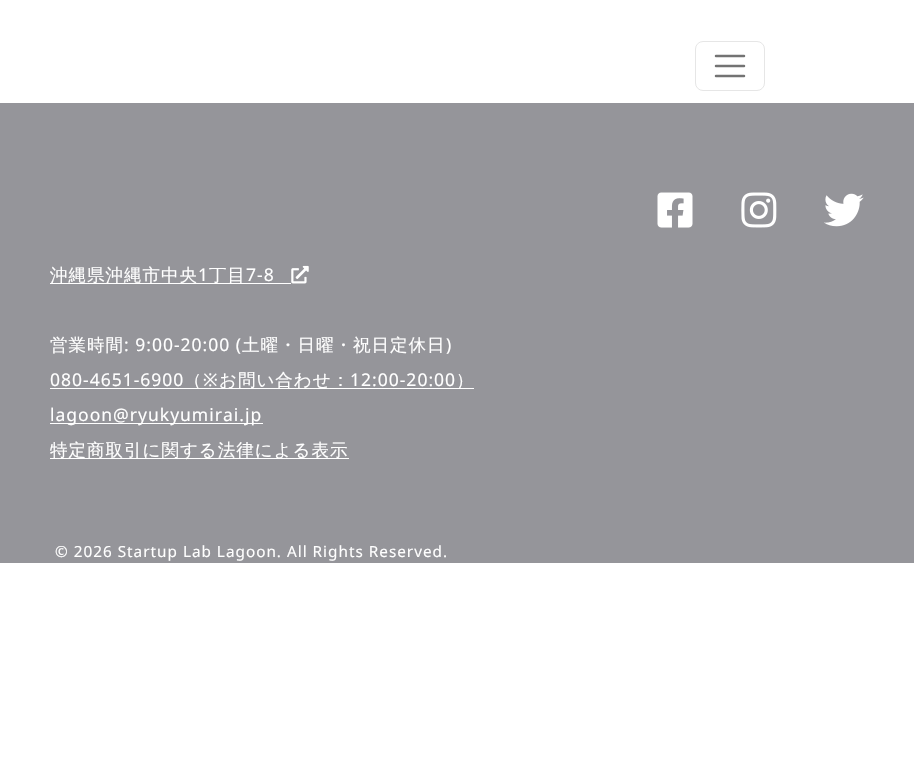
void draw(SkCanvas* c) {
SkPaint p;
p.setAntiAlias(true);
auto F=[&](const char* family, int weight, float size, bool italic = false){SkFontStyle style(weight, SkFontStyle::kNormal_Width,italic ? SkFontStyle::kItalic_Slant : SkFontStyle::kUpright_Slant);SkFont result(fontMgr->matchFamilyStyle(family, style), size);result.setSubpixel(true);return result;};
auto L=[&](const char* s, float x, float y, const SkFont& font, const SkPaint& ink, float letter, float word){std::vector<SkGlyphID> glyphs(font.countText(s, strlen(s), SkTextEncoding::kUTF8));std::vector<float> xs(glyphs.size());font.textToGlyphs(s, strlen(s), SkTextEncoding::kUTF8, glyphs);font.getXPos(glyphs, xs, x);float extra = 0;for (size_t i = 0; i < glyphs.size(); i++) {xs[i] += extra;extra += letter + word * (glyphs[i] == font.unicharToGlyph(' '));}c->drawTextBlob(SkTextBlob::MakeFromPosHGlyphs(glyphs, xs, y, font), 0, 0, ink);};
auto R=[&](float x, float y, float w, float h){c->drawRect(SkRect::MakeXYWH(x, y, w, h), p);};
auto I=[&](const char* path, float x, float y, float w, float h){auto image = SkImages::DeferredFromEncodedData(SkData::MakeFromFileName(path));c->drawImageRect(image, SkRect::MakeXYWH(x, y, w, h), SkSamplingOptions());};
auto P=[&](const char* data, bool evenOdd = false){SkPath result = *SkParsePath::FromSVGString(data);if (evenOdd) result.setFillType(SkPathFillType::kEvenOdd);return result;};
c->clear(0xffffffff);
p.setStroke(true);
p.setStrokeWidth(1);
p.setColor(0xffe6e6e6);
c->drawRoundRect(SkRect::MakeXYWH(695.5,41.5,69,49),7.5,7.5,p);
p.setStrokeWidth(2.5);
p.setStrokeCap(SkPaint::kRound_Cap);
p.setColor(0xff737373);
c->drawPath(P("M716 56h28m-28 10h28m-28 10h28"),p);
p.setStroke(false);
p.setColor(0xff95959a);
R(0,103,914,460);
I("1.png",657,192,36,36);
I("2.png",741,192,36,36);
I("3.png",824,193,40,34);
p.setColor(0xffffffff);
R(50,283,241,1);
auto f1 = F("WenQuanYi Zen Hei",500,17.5);
L("沖縄県沖縄市中央",50,281,f1,p,1,0);
auto f2 = F("Noto Sans",400,17.5);
L("1",198,281,f2,p,1,0);
L("丁目",209,281,f1,p,1,0);
L("7-8",246,281,f2,p,1,0);
I("4.png",291,265,18,19);
L("営業時間",50,351,f1,p,1,0);
L(": 9:00-20:00 (",124,351,f2,p,1,0);
L("土曜・日曜・祝日定休日",242,351,f1,p,1,0);
L(")",446,351,f2,p,1,0);
L("080-4651-6900",50,386,f2,p,1,0);
R(50,388,424,1);
L("（",184,386,f1,p,1,0);
L("※",203,386,f2,p,1,0);
L("お問い合わせ：",219,386,f1,p,1,0);
L("12:00-20:00",350,386,f2,p,1,0);
L("）",456,386,f1,p,1,0);
R(50,423,213,1);
L("lagoon@ryukyumirai.jp",50,421,f2,p,1,0);
R(50,458,299,1);
L("特定商取引に関する法律による表示",50,456,f1,p,1,0);
auto f3 = F("Noto Sans",400,15.3);
L("© 2026 Startup Lab Lagoon. All Rights Reserved.",55,557,f3,p,1,0);
}
